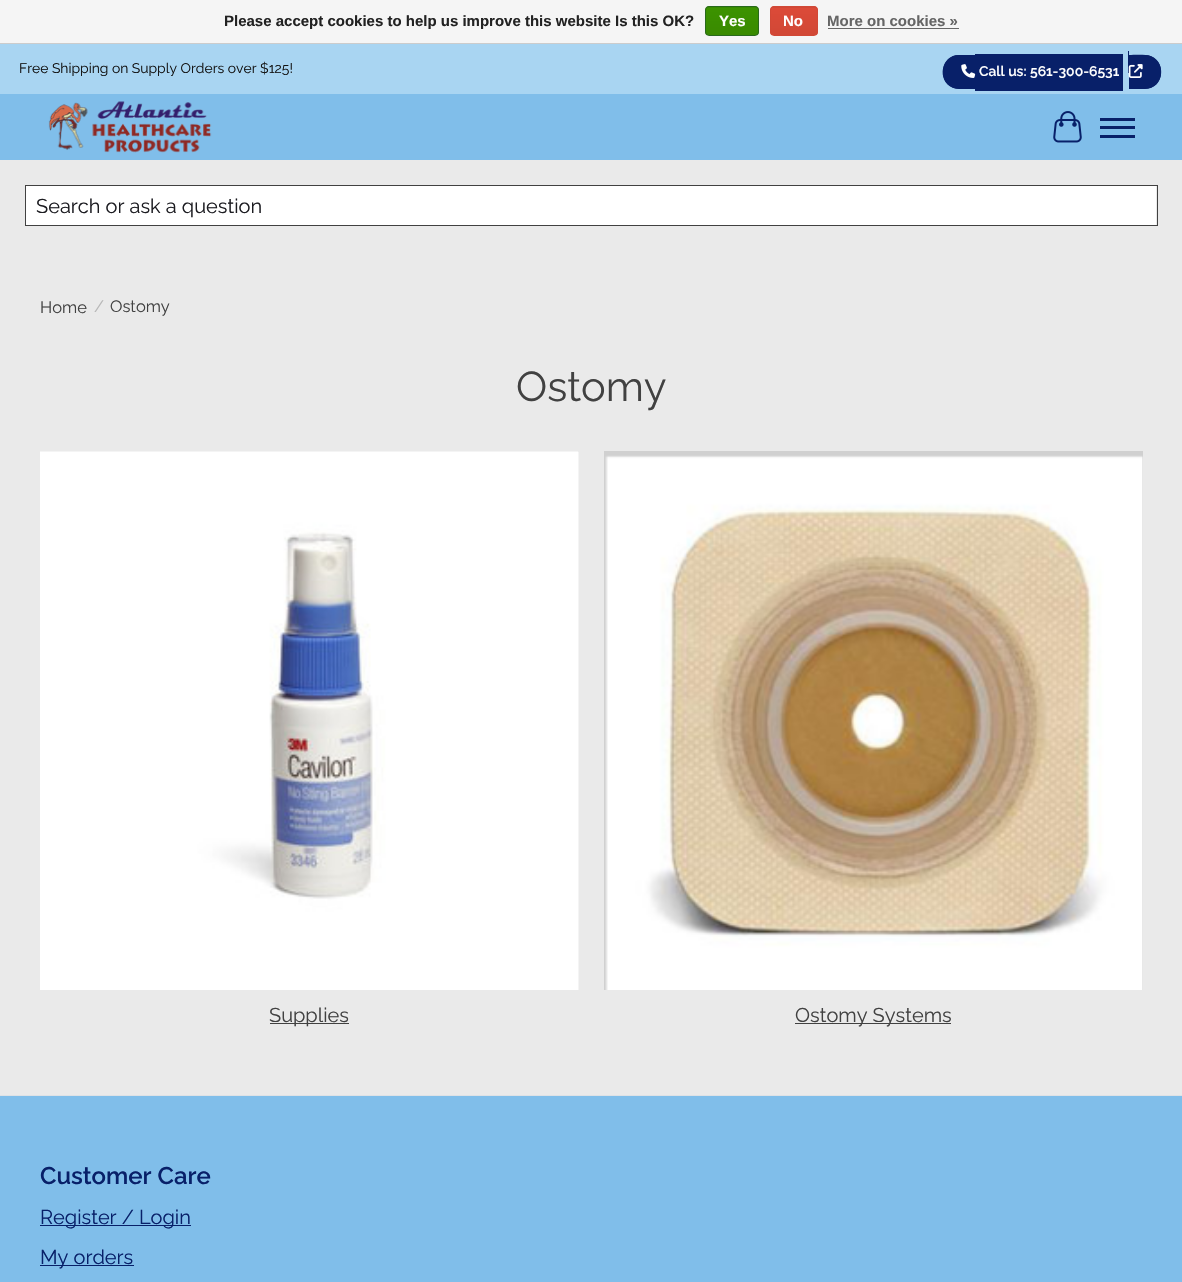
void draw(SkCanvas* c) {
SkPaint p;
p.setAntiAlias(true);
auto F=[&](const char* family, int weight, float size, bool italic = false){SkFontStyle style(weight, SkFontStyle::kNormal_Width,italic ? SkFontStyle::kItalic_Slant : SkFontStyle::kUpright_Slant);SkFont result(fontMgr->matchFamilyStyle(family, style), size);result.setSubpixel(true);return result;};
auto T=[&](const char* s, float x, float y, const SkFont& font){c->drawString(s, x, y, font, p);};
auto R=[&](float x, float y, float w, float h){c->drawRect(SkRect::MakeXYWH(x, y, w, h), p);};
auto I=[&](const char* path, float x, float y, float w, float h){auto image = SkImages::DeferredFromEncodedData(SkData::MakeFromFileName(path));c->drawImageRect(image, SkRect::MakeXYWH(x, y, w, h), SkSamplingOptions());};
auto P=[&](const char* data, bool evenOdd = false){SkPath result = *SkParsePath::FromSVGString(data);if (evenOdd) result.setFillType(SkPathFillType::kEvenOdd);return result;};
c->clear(0xffeaeaea);
p.setColor(0xfff5f5f5);
R(0,0,1182,43);
p.setColor(0xffcccccc);
R(0,43,1182,1);
auto f1 = F("Liberation Sans",700,15);
p.setColor(0xff222222);
T("Please accept cookies to help us improve this website Is this OK?",224,26,f1);
c->save();
c->clipPath(P("M709 6h46c2 0 4 2 4 4v22c0 2-2 4-4 4h-46c-2 0-4-2-4-4v-22c0-2 2-4 4-4z"),true);
{
const SkColor colors[] = {0xff3c9300,0xff398a00};
const float stops[] = {0,1};
const SkPoint ends[] = {{732,-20}, {732,7.5}};
p.setShader(SkGradientShader::MakeLinear(ends, colors, stops, 2, SkTileMode::kClamp));
p.setAlpha(255);
}
R(705,6,54,2);
{
const SkColor colors[] = {0xff3c9300,0xff398a00};
const float stops[] = {0,1};
const SkPoint ends[] = {{732,7.5}, {732,35}};
p.setShader(SkGradientShader::MakeLinear(ends, colors, stops, 2, SkTileMode::kClamp));
p.setAlpha(255);
}
R(705,8,54,27);
c->restore();
p.setStroke(true);
p.setStrokeWidth(1);
p.setShader(nullptr);
p.setColor(0xff29691d);
c->drawRoundRect(SkRect::MakeXYWH(705.5,6.5,53,29),3.5,3.5,p);
p.setStroke(false);
p.setColor(0xffffffff);
T("Yes",719,26,f1);
c->save();
c->clipPath(P("M774 6h40c2 0 4 2 4 4v22c0 2-2 4-4 4h-40c-2 0-4-2-4-4v-22c0-2 2-4 4-4z"),true);
{
const SkColor colors[] = {0xffdc4a38,0xffd14836};
const float stops[] = {0,1};
const SkPoint ends[] = {{794,-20}, {794,7.5}};
p.setShader(SkGradientShader::MakeLinear(ends, colors, stops, 2, SkTileMode::kClamp));
p.setAlpha(255);
}
R(770,6,48,2);
{
const SkColor colors[] = {0xffdc4a38,0xffd14836};
const float stops[] = {0,1};
const SkPoint ends[] = {{794,7.5}, {794,35}};
p.setShader(SkGradientShader::MakeLinear(ends, colors, stops, 2, SkTileMode::kClamp));
p.setAlpha(255);
}
R(770,8,48,27);
c->restore();
p.setStroke(true);
p.setShader(nullptr);
p.setColor(0xffd14836);
c->drawRoundRect(SkRect::MakeXYWH(770.5,6.5,47,29),3.5,3.5,p);
p.setStroke(false);
p.setColor(0xffffffff);
T("No",783,26,f1);
p.setColor(0xff666666);
T("More on cookies »",827,26,f1);
R(828,28,131,1);
p.setColor(0xff80beea);
R(0,94,1182,66);
p.setColor(0xffa9d5f2);
R(0,44,1182,50);
auto f2 = F("Raleway",400,13.9);
p.setColor(0xff131313);
T("Free Shipping on Supply Orders over $125!",19,73,f2);
p.setColor(0xff082069);
c->drawPath(P("M959 55h16v34h-16c-9 0-16-7-16-16v-2c0-9 7-16 16-16z"),p);
c->drawPath(P("M959 55h16v34c-6 0-17.5 .5-22.5-1.5c-16-7-11.5-32.5 6.5-32.5zm0 2.5h16v28.5c-5.5 0-17 1-21.5-1c-14-5.5-10-27.5 5.5-27.5z",true),p);
R(975,54,148,37);
R(1128,51,1,22);
c->drawPath(P("M1129 55h16c9 0 16 7 16 16v2c0 9-7 16-16 16h-16z"),p);
c->drawPath(P("M1129 55c5.5 0 17-1 22.5 1.5c13 5.5 13 25.5 0 31c-5.5 2-17 1.5-22.5 1.5zm0 2.5c5 0 16.5-1 21.5 1c11 5 11 22 0 26.5c-5 2-16.5 1-21.5 1z",true),p);
I("1.png",961,64,15,14);
auto f3 = F("Raleway",600,13.9);
p.setColor(0xffffffff);
T("Call us: 561-300-6531",979,76,f3);
I("2.png",1128,64,15,14);
I("3.png",48,101,164,52);
I("4.png",1053,111,29,32);
p.setColor(0xff082069);
R(1100,126,35,3);
R(1100,118,35,3);
R(1100,135,35,3);
p.setColor(0xffffffff);
R(26,186,1130,39);
p.setStroke(true);
p.setColor(0xff414141);
c->drawRect(SkRect::MakeXYWH(25.5,185.5,1132,40),p);
auto f4 = F("Raleway",400,20);
p.setStroke(false);
p.setColor(0xff1c1c21);
T("Search or ask a question",36,213,f4);
auto f5 = F("Raleway",400,16.5);
p.setColor(0xff414141);
T("Home",40,313,f5);
p.setColor(0xffb7b7b7);
T("/",94,312,f5);
p.setColor(0xff414141);
T("Ostomy",110,312,f5);
auto f6 = F("Raleway",400,41.5);
T("Ostomy",516,401,f6);
p.setColor(0xffd0d0d0);
R(40,451,539,539);
I("5.png",40,451,539,539);
p.setColor(0xff414141);
R(270,1023,79,1);
T("Supplies",269,1022,f4);
p.setColor(0xffd0d0d0);
R(604,451,539,539);
I("6.png",605,455,538,535);
p.setColor(0xff414141);
R(795,1023,156,1);
T("Ostomy Systems",795,1022,f4);
p.setColor(0xff80beea);
R(0,1096,1182,186);
p.setColor(0xffdee2e6);
R(0,1095,1182,1);
auto f7 = F("Raleway",600,24);
p.setColor(0xff082069);
T("Customer Care",40,1184,f7);
R(40,1225,151,1);
T("Register / Login",40,1224,f4);
R(40,1265,94,1);
T("My orders",40,1264,f4);
}
